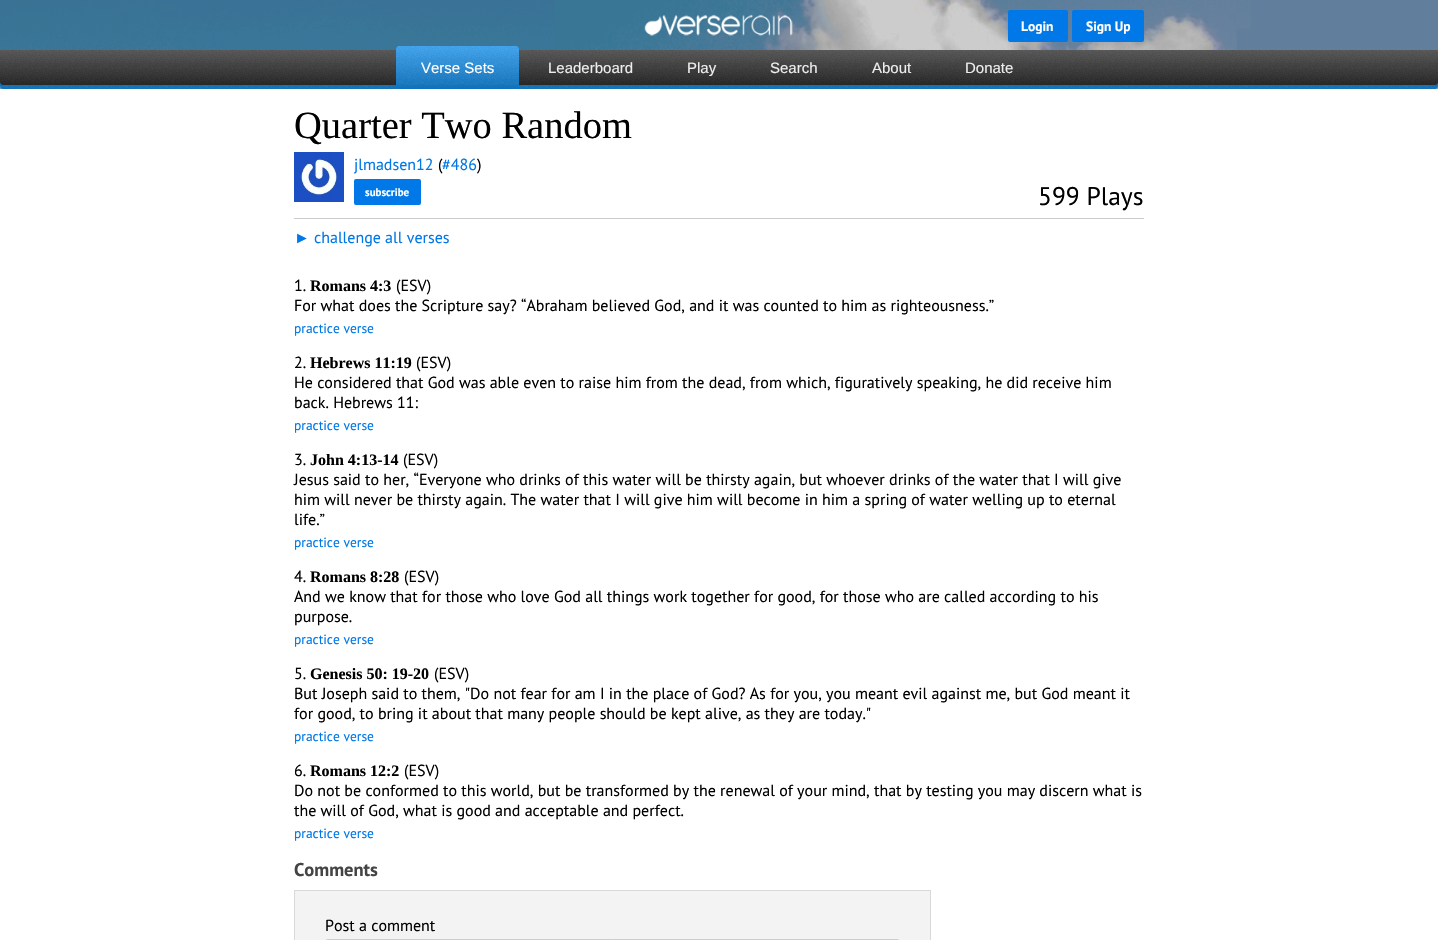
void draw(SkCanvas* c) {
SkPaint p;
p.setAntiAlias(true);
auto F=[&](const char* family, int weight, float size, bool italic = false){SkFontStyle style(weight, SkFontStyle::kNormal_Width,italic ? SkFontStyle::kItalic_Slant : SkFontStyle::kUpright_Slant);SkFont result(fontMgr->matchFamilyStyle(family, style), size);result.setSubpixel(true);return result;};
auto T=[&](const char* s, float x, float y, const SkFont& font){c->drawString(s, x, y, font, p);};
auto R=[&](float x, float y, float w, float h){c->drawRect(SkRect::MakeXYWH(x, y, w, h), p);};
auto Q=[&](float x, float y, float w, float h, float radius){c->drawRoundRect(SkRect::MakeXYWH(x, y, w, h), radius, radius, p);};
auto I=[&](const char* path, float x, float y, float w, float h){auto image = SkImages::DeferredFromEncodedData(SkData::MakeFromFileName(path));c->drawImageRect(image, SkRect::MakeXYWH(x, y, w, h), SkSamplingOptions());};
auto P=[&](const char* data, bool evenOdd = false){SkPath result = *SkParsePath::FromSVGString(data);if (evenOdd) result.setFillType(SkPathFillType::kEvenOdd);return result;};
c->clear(0xffffffff);
I("2.png",0,0,1438,89);
p.setColor(0x33000000);
R(0,0,1438,50);
I("1.png",644,14,149,22);
p.setColor(0xff0078e7);
Q(1008,10,60,32,2);
auto f1 = F("PT Sans",700,13.5);
p.setColor(0xffffffff);
T("Login",1021,31,f1);
p.setColor(0xff0078e7);
Q(1072,10,72,32,2);
p.setColor(0xffffffff);
T("Sign Up",1086,31,f1);
p.setColor(0xff0f71ba);
c->drawPath(P("M0 79h1438v7c0 1.5-1.5 3-3 3h-1432c-1.5 0-3-1.5-3-3z"),p);
I("5.png",0,82,1438,7);
{
const SkColor colors[] = {0xff555555,0xff222222};
const float stops[] = {0,1};
const SkPoint ends[] = {{719,50}, {719,85}};
p.setShader(SkGradientShader::MakeLinear(ends, colors, stops, 2, SkTileMode::kClamp));
p.setAlpha(255);
}
c->drawPath(P("M0 50h1438v32c0 1.5-1.5 3-3 3h-1432c-1.5 0-3-1.5-3-3z"),p);
I("3.png",0,50,1438,35);
{
const SkColor colors[] = {0xff3fa4f0,0xff0f71ba};
const float stops[] = {0,1};
const SkPoint ends[] = {{458,46}, {458,89}};
p.setShader(SkGradientShader::MakeLinear(ends, colors, stops, 2, SkTileMode::kClamp));
p.setAlpha(255);
}
c->drawPath(P("M399 46h117c1.5 0 3 1.5 3 3v40h-120c-1.5 0-3-1.5-3-3v-37c0-1.5 1.5-3 3-3z"),p);
I("4.png",396,46,123,39);
auto f2 = F("Liberation Sans",400,15);
p.setShader(nullptr);
p.setColor(0xffffffff);
T("Verse Sets",421,73,f2);
p.setColor(0xffeeeeee);
T("Leaderboard",548,73,f2);
T("Play",687,73,f2);
T("Search",770,73,f2);
T("About",872,73,f2);
T("Donate",965,73,f2);
auto f3 = F("Liberation Serif",400,38.5);
p.setColor(0xff000000);
T("Quarter Two Random",294,138,f3);
p.setColor(0xffcccccc);
R(294,218,850,1);
I("6.png",294,152,50,50);
auto f4 = F("PT Sans",400,16);
p.setColor(0xff0078e7);
T("jlmadsen12",354,170,f4);
p.setColor(0xff000000);
T("(",438,170,f4);
p.setColor(0xff0078e7);
T("#486",442,170,f4);
p.setColor(0xff000000);
T(")",477,170,f4);
p.setColor(0xff0078e7);
Q(354,179,67,26,2);
auto f5 = F("PT Sans",700,11);
p.setColor(0xffffffff);
T("subscribe",365,196,f5);
auto f6 = F("PT Sans",400,25.5);
p.setColor(0xff000000);
T("599 Plays",1038,205,f6);
auto f7 = F("Liberation Sans",400,16);
p.setColor(0xff0078e7);
T("►",294,243,f7);
T("challenge all verses",314,243,f4);
p.setColor(0xff000000);
T("1.",294,291,f4);
auto f8 = F("Liberation Serif",700,16);
T("Romans 4:3",310,291,f8);
T("(ESV)",396,291,f4);
T("For what does the Scripture say? “Abraham believed God, and it was counted to him as righteousness.”",294,311,f4);
auto f9 = F("PT Sans",400,13.5);
p.setColor(0xff0078e7);
T("practice verse",294,333,f9);
p.setColor(0xff000000);
T("2.",294,368,f4);
T("Hebrews 11:19",310,368,f8);
T("(ESV)",416,368,f4);
T("He considered that God was able even to raise him from the dead, from which, figuratively speaking, he did receive him",294,388,f4);
T("back. Hebrews 11:",294,408,f4);
p.setColor(0xff0078e7);
T("practice verse",294,430,f9);
p.setColor(0xff000000);
T("3.",294,465,f4);
T("John 4:13-14",310,465,f8);
T("(ESV)",403,465,f4);
T("Jesus said to her, “Everyone who drinks of this water will be thirsty again, but whoever drinks of the water that I will give",294,485,f4);
T("him will never be thirsty again. The water that I will give him will become in him a spring of water welling up to eternal",294,505,f4);
T("life.”",294,525,f4);
p.setColor(0xff0078e7);
T("practice verse",294,547,f9);
p.setColor(0xff000000);
T("4.",294,582,f4);
T("Romans 8:28",310,582,f8);
T("(ESV)",404,582,f4);
T("And we know that for those who love God all things work together for good, for those who are called according to his",294,602,f4);
T("purpose.",294,622,f4);
p.setColor(0xff0078e7);
T("practice verse",294,644,f9);
p.setColor(0xff000000);
T("5.",294,679,f4);
T("Genesis 50: 19-20",310,679,f8);
T("(ESV)",434,679,f4);
T("But Joseph said to them, \"Do not fear for am I in the place of God? As for you, you meant evil against me, but God meant it",294,699,f4);
T("for good, to bring it about that many people should be kept alive, as they are today.\"",294,719,f4);
p.setColor(0xff0078e7);
T("practice verse",294,741,f9);
p.setColor(0xff000000);
T("6.",294,776,f4);
T("Romans 12:2",310,776,f8);
T("(ESV)",404,776,f4);
T("Do not be conformed to this world, but be transformed by the renewal of your mind, that by testing you may discern what is",294,796,f4);
T("the will of God, what is good and acceptable and perfect.",294,816,f4);
p.setColor(0xff0078e7);
T("practice verse",294,838,f9);
auto f10 = F("PT Sans",700,18.5);
p.setColor(0xff444444);
T("Comments",294,876,f10);
p.setColor(0xfff3f3f3);
c->drawRect(SkRect::MakeXYWH(294.5,890.5,636,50),p);
p.setStroke(true);
p.setStrokeWidth(1);
p.setColor(0xffd9d9d9);
c->drawRect(SkRect::MakeXYWH(294.5,890.5,636,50),p);
p.setStroke(false);
p.setColor(0xff000000);
T("Post a comment",325,931,f4);
p.setStroke(true);
p.setColor(0xffcccccc);
c->drawRoundRect(SkRect::MakeXYWH(325.5,939.5,574,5),3.5,3.5,p);
}
